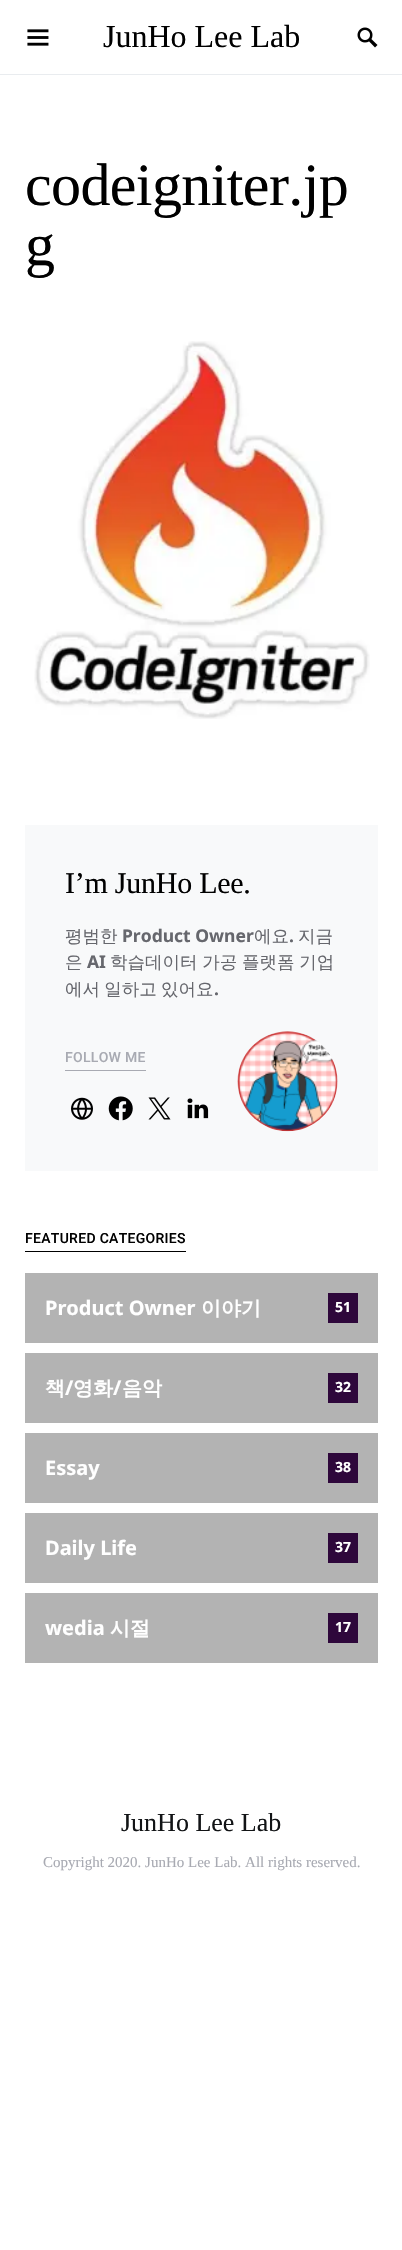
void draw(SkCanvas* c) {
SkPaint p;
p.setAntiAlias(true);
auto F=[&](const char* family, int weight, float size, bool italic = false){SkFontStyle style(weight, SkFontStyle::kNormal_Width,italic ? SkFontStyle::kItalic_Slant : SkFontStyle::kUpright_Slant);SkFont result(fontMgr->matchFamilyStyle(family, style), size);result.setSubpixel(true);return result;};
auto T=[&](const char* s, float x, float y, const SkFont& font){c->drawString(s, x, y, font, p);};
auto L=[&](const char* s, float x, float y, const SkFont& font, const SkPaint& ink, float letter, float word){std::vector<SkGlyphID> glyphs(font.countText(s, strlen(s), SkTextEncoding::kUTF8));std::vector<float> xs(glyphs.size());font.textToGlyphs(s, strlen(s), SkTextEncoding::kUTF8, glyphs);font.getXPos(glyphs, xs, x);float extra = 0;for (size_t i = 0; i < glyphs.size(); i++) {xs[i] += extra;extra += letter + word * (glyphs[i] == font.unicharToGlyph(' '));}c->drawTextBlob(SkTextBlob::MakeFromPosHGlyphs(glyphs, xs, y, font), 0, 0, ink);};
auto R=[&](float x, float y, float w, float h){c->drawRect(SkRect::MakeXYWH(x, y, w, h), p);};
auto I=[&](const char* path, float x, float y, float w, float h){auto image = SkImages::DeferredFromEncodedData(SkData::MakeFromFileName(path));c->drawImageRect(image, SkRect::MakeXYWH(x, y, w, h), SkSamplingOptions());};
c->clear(0xffffffff);
p.setColor(0xffe9ecef);
R(0,74,402,1);
I("1.png",27,29,22,17);
auto f1 = F("Liberation Serif",400,32);
p.setColor(0xff000000);
T("JunHo Lee Lab",103,47,f1);
I("2.png",357,27,21,21);
auto f2 = F("Liberation Serif",400,60);
L("codeigniter.jp",25,205,f2,p,-.6,0);
L("g",25,265,f2,p,-.6,0);
I("3.png",34,341,336,378);
p.setColor(0xfff8f9fa);
R(25,825,353,346);
auto f3 = F("Liberation Serif",400,30);
p.setColor(0xff000000);
L("I’m JunHo Lee.",65,893,f3,p,-.25,0);
auto f4 = F("WenQuanYi Zen Hei",500,17.5);
p.setColor(0xff66676d);
T("평범한",65,942,f4);
auto f5 = F("Noto Sans",700,17.5);
T("Product Owner",122,942,f5);
T("에요",254,942,f4);
T(".",289,942,f5);
T("지금",298,942,f4);
T("은",65,968,f4);
T("AI",87,968,f5);
L("학습데이터 가공 플랫폼 기업",110,968,f4,p,0,-.5);
L("에서 일하고 있어요",65,995,f4,p,0,-1);
T(".",214,995,f5);
auto f6 = F("Roboto",500,14);
p.setColor(0xffa8aab2);
L("FOLLOW ME",65,1062,f6,p,.3,0);
R(65,1070,81,1);
I("4.png",71,1097,22,23);
I("5.png",108,1096,25,25);
I("6.png",148,1097,23,23);
I("7.png",187,1098,22,21);
I("8.png",237,1031,101,101);
p.setColor(0xff000000);
L("FEATURED CATEGORIES",25,1243,f6,p,.3,0);
R(25,1251,161,1);
p.setColor(0xffb3b3b3);
R(25,1273,353,70);
auto f7 = F("Noto Sans",700,20);
p.setColor(0xffffffff);
T("Product Owner",45,1315,f7);
auto f8 = F("WenQuanYi Zen Hei",700,20);
T("이야기",201,1315,f8);
p.setColor(0xff2e073b);
R(328,1293,30,30);
auto f9 = F("Noto Sans",700,14);
p.setColor(0xffffffff);
T("51",335,1312,f9);
p.setColor(0xffb3b3b3);
R(25,1353,353,70);
p.setColor(0xffffffff);
T("책",45,1395,f8);
T("/",65,1395,f7);
T("영화",73,1395,f8);
T("/",113,1395,f7);
T("음악",122,1395,f8);
p.setColor(0xff2e073b);
R(328,1373,30,30);
p.setColor(0xffffffff);
T("32",335,1392,f9);
p.setColor(0xffb3b3b3);
R(25,1433,353,70);
p.setColor(0xffffffff);
T("Essay",45,1475,f7);
p.setColor(0xff2e073b);
R(328,1453,30,30);
p.setColor(0xffffffff);
T("38",335,1472,f9);
p.setColor(0xffb3b3b3);
R(25,1513,353,70);
p.setColor(0xffffffff);
T("Daily Life",45,1555,f7);
p.setColor(0xff2e073b);
R(328,1533,30,30);
p.setColor(0xffffffff);
T("37",335,1552,f9);
p.setColor(0xffb3b3b3);
R(25,1593,353,70);
p.setColor(0xffffffff);
T("wedia",45,1635,f7);
T("시절",110,1635,f8);
p.setColor(0xff2e073b);
R(328,1613,30,30);
p.setColor(0xffffffff);
T("17",335,1632,f9);
auto f10 = F("Liberation Serif",400,26);
p.setColor(0xff121416);
T("JunHo Lee Lab",121,1831,f10);
auto f11 = F("Liberation Serif",400,15);
p.setColor(0xffa8aab2);
T("Copyright 2020. JunHo Lee Lab. All rights reserved.",43,1867,f11);
}
